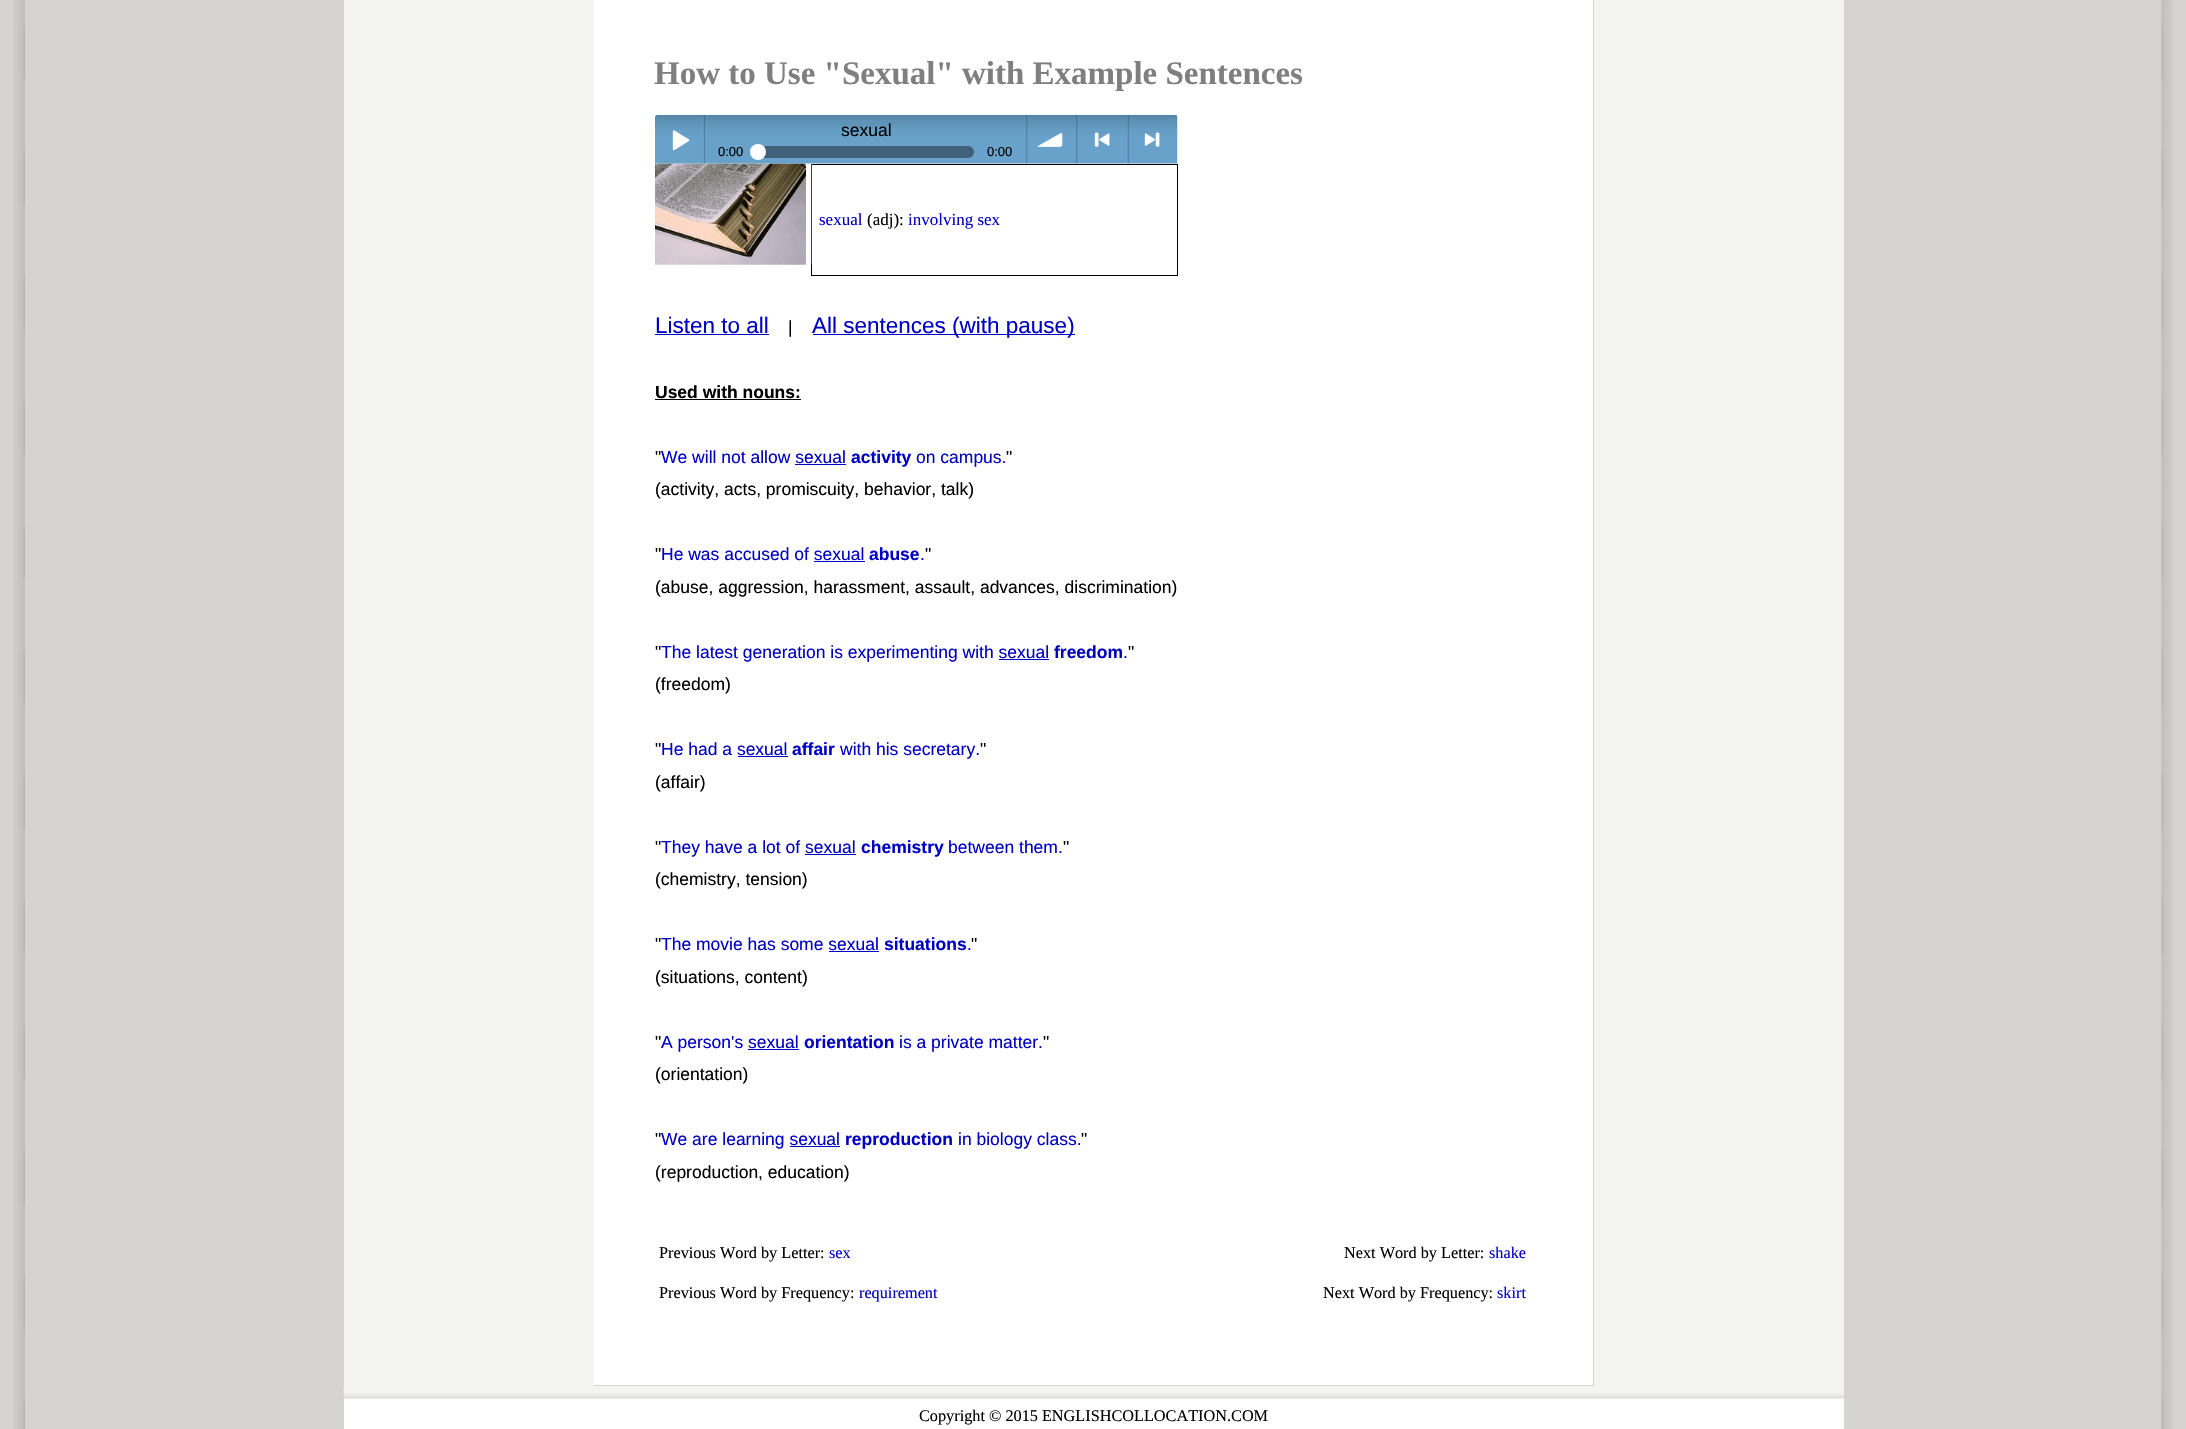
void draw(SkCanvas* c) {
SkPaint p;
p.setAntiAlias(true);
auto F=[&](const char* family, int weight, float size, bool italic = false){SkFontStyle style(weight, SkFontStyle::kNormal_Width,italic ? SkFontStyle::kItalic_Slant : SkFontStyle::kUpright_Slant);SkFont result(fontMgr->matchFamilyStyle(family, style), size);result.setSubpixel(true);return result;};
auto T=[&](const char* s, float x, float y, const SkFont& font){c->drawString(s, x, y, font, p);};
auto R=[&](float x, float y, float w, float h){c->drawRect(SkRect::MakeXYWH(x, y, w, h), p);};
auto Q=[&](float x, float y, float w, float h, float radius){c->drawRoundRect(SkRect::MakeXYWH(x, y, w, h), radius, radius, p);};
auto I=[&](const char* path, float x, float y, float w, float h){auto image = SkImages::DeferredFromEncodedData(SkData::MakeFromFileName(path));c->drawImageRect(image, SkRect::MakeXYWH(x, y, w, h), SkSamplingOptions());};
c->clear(0xffd5d4d0);
I("1.png",13,0,12,1429);
p.setColor(0xfff4f4f2);
R(344,0,1500,1399);
p.setColor(0xffffffff);
R(594,0,999,1385);
p.setColor(0xffd5d4d0);
R(1593,0,1,1386);
R(594,1385,1000,1);
auto f1 = F("Liberation Serif",700,33);
p.setColor(0xff7f7f7f);
T("How to Use \"Sexual\" with Example Sentences",654,84,f1);
p.setStroke(true);
p.setStrokeWidth(1);
p.setColor(0xff000000);
c->drawRect(SkRect::MakeXYWH(811.5,164.5,366,111),p);
I("7.png",655,163,157,102);
I("2.png",655,114,523,50);
p.setStroke(false);
p.setColor(0x1a000000);
R(704,115,1,50);
I("3.png",672,130,18,21);
R(1026,115,1,50);
auto f2 = F("Liberation Sans",400,17.5);
p.setColor(0xff000000);
T("sexual",841,136,f2);
auto f3 = F("Liberation Sans",400,13);
T("0:00",718,156,f3);
p.setColor(0xff3e6179);
Q(759,146,215,12,6);
p.setColor(0xffffffff);
c->drawCircle(758,152,8,p);
p.setColor(0xff000000);
T("0:00",987,156,f3);
p.setColor(0x1a000000);
R(1076,115,1,50);
I("4.png",1037,133,26,14);
R(1128,115,1,50);
I("5.png",1094,132,16,15);
I("6.png",1144,132,16,15);
auto f4 = F("Liberation Serif",400,17);
p.setColor(0xff0000c2);
T("sexual",819,225,f4);
p.setColor(0xff000000);
T("(adj):",867,225,f4);
p.setColor(0xff0000c2);
T("involving sex",908,225,f4);
auto f5 = F("Liberation Sans",400,22.5);
T("Listen to all",655,333,f5);
R(655,334,114,1);
p.setColor(0xff000000);
T("|",788,333,f2);
p.setColor(0xff0000c2);
R(813,334,262,1);
T("All sentences (with pause)",812,333,f5);
auto f6 = F("Liberation Sans",700,17.5);
p.setColor(0xff000000);
T("Used with nouns:",655,398,f6);
R(655,399,146,1);
T("\"",655,463,f2);
p.setColor(0xff0000c2);
T("We will not allow sexual",661,463,f2);
R(795,464,51,1);
T("activity",851,463,f6);
p.setColor(0xff000000);
T("\"",1006,463,f2);
p.setColor(0xff0000c2);
T("on campus.",916,463,f2);
p.setColor(0xff000000);
T("(activity, acts, promiscuity, behavior, talk)",655,495,f2);
T("\"",655,560,f2);
p.setColor(0xff0000c2);
T("He was accused of sexual",661,560,f2);
R(814,561,51,1);
T("abuse",869,560,f6);
p.setColor(0xff000000);
T("\"",925,560,f2);
p.setColor(0xff0000c2);
T(".",920,560,f2);
p.setColor(0xff000000);
T("(abuse, aggression, harassment, assault, advances, discrimination)",655,593,f2);
T("\"",655,658,f2);
p.setColor(0xff0000c2);
T("The latest generation is experimenting with sexual",661,658,f2);
R(999,659,50,1);
T("freedom",1054,658,f6);
p.setColor(0xff000000);
T("\"",1128,658,f2);
p.setColor(0xff0000c2);
T(".",1123,658,f2);
p.setColor(0xff000000);
T("(freedom)",655,690,f2);
T("\"",655,755,f2);
p.setColor(0xff0000c2);
T("He had a sexual",661,755,f2);
R(738,756,50,1);
T("affair",792,755,f6);
T("with his secretary.",840,755,f2);
p.setColor(0xff000000);
T("\"",980,755,f2);
T("(affair)",655,788,f2);
T("\"",655,853,f2);
p.setColor(0xff0000c2);
T("They have a lot of sexual",661,853,f2);
R(805,854,51,1);
T("chemistry",861,853,f6);
T("between them.",948,853,f2);
p.setColor(0xff000000);
T("\"",1063,853,f2);
T("(chemistry, tension)",655,885,f2);
T("\"",655,950,f2);
p.setColor(0xff0000c2);
T("The movie has some sexual",661,950,f2);
R(829,951,50,1);
T("situations",884,950,f6);
p.setColor(0xff000000);
T("\"",971,950,f2);
p.setColor(0xff0000c2);
T(".",967,950,f2);
p.setColor(0xff000000);
T("(situations, content)",655,983,f2);
T("\"",655,1048,f2);
p.setColor(0xff0000c2);
T("A person's sexual",661,1048,f2);
R(748,1049,51,1);
T("orientation",804,1048,f6);
T("is a private matter.",899,1048,f2);
p.setColor(0xff000000);
T("\"",1043,1048,f2);
T("(orientation)",655,1080,f2);
T("\"",655,1145,f2);
p.setColor(0xff0000c2);
T("We are learning sexual",661,1145,f2);
R(790,1146,50,1);
T("reproduction",845,1145,f6);
T("in biology class.",958,1145,f2);
p.setColor(0xff000000);
T("\"",1081,1145,f2);
T("(reproduction, education)",655,1178,f2);
auto f7 = F("Liberation Serif",400,16.25);
T("Previous Word by Letter:",659,1258,f7);
p.setColor(0xff0000c2);
T("sex",829,1258,f7);
p.setColor(0xff000000);
T("Next Word by Letter:",1344,1258,f7);
p.setColor(0xff0000c2);
T("shake",1489,1258,f7);
p.setColor(0xff000000);
T("Previous Word by Frequency:",659,1298,f7);
p.setColor(0xff0000c2);
T("requirement",859,1298,f7);
p.setColor(0xff000000);
T("Next Word by Frequency:",1323,1298,f7);
p.setColor(0xff0000c2);
T("skirt",1497,1298,f7);
I("8.png",343,1386,1501,13);
p.setColor(0xffffffff);
R(344,1399,1500,30);
p.setColor(0xff000000);
T("Copyright © 2015 ENGLISHCOLLOCATION.COM",919,1421,f7);
I("9.png",2161,0,12,1429);
}
